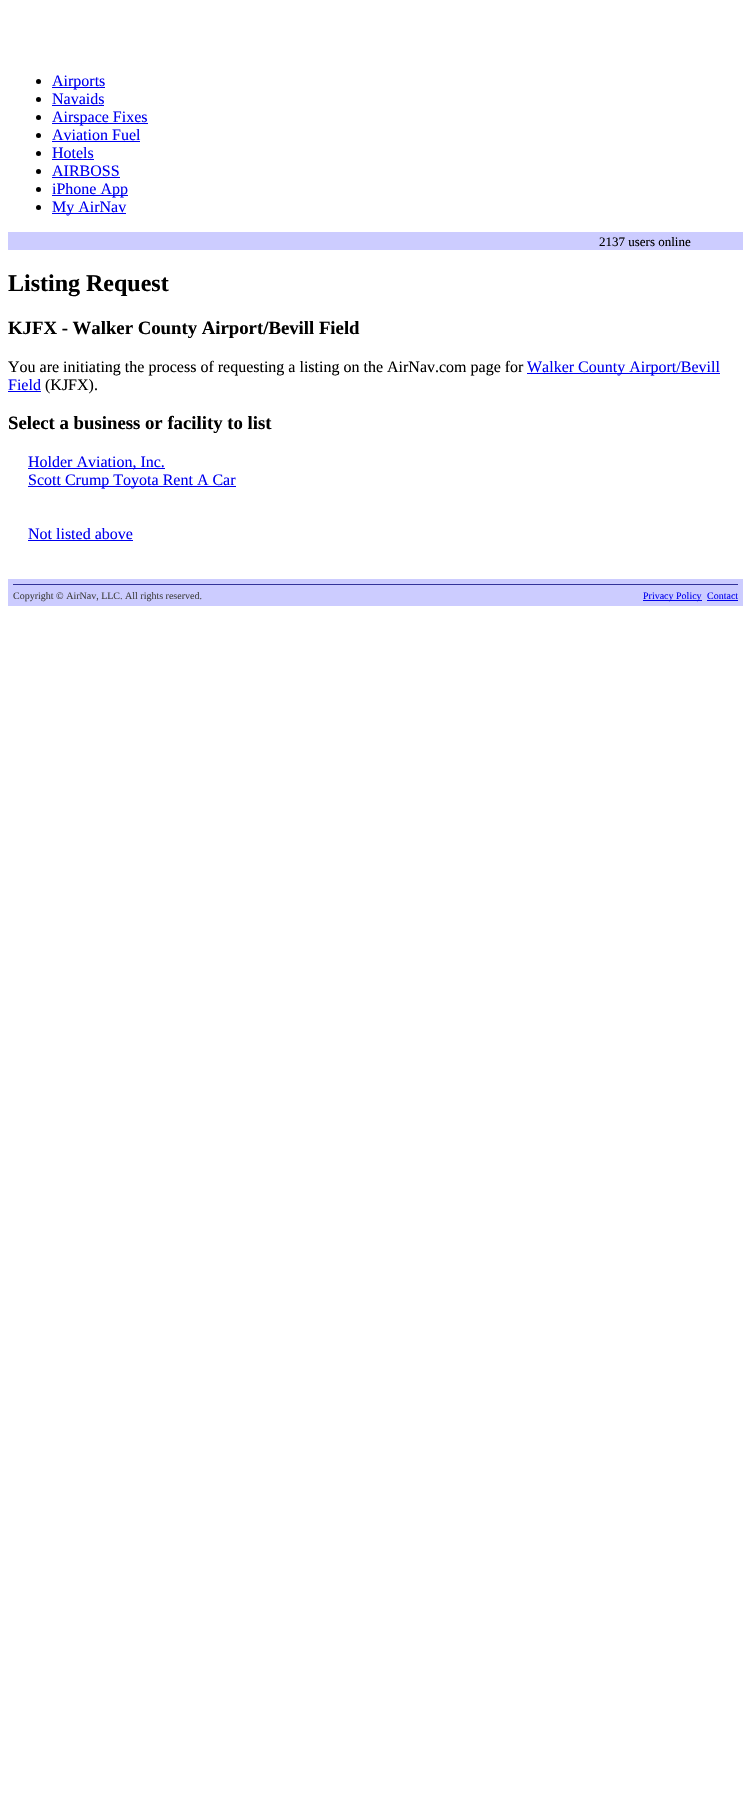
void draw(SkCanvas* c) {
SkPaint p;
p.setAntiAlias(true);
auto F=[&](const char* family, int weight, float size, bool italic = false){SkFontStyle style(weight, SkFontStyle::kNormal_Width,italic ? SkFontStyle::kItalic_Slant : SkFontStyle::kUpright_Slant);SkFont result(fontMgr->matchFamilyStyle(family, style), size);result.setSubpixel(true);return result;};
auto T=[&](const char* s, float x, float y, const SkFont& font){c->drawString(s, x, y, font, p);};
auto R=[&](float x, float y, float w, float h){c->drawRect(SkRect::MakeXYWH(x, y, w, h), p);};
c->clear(0xffffffff);
p.setColor(0xff000000);
c->drawCircle(38.5,81.5,2.5,p);
p.setColor(0xff0000ee);
R(52,87,53,1);
auto f1 = F("Liberation Serif",400,16);
T("Airports",52,86,f1);
p.setColor(0xff000000);
c->drawCircle(38.5,99.5,2.5,p);
p.setColor(0xff0000ee);
T("Navaids",52,104,f1);
R(52,105,52,1);
p.setColor(0xff000000);
c->drawCircle(38.5,117.5,2.5,p);
p.setColor(0xff0000ee);
R(52,123,96,1);
T("Airspace Fixes",52,122,f1);
p.setColor(0xff000000);
c->drawCircle(38.5,135.5,2.5,p);
p.setColor(0xff0000ee);
T("Aviation Fuel",52,140,f1);
R(52,141,88,1);
p.setColor(0xff000000);
c->drawCircle(38.5,153.5,2.5,p);
p.setColor(0xff0000ee);
T("Hotels",52,158,f1);
R(52,159,42,1);
p.setColor(0xff000000);
c->drawCircle(38.5,171.5,2.5,p);
p.setColor(0xff0000ee);
T("AIRBOSS",52,176,f1);
R(52,177,68,1);
p.setColor(0xff000000);
c->drawCircle(38.5,189.5,2.5,p);
p.setColor(0xff0000ee);
R(52,195,76,1);
T("iPhone App",52,194,f1);
p.setColor(0xff000000);
c->drawCircle(38.5,207.5,2.5,p);
p.setColor(0xff0000ee);
R(52,213,74,1);
T("My AirNav",52,212,f1);
p.setColor(0xffccccff);
R(8,232,735,18);
auto f2 = F("Liberation Serif",400,13);
p.setColor(0xff000000);
T("2137 users online",599,246,f2);
auto f3 = F("Liberation Serif",700,24);
T("Listing Request",8,291,f3);
auto f4 = F("Liberation Serif",700,18.75);
T("KJFX - Walker County Airport/Bevill Field",8,334,f4);
T("You are initiating the process of requesting a listing on the AirNav.com page for",8,372,f1);
p.setColor(0xff0000ee);
R(527,373,193,1);
T("Walker County Airport/Bevill",527,372,f1);
T("Field",8,390,f1);
R(8,391,33,1);
p.setColor(0xff000000);
T("(KJFX).",45,390,f1);
T("Select a business or facility to list",8,429,f4);
p.setColor(0xff0000ee);
R(28,468,137,1);
T("Holder Aviation, Inc.",28,467,f1);
R(28,486,208,1);
T("Scott Crump Toyota Rent A Car",28,485,f1);
T("Not listed above",28,539,f1);
R(28,540,105,1);
p.setColor(0xffccccff);
R(8,579,735,27);
p.setColor(0xff333399);
R(13,584,725,1);
auto f5 = F("Liberation Serif",400,10);
p.setColor(0xff404040);
T("Copyright © AirNav, LLC. All rights reserved.",13,599,f5);
p.setColor(0xff0000ee);
R(643,600,59,1);
T("Privacy Policy",643,599,f5);
T("Contact",707,599,f5);
R(707,600,31,1);
}
